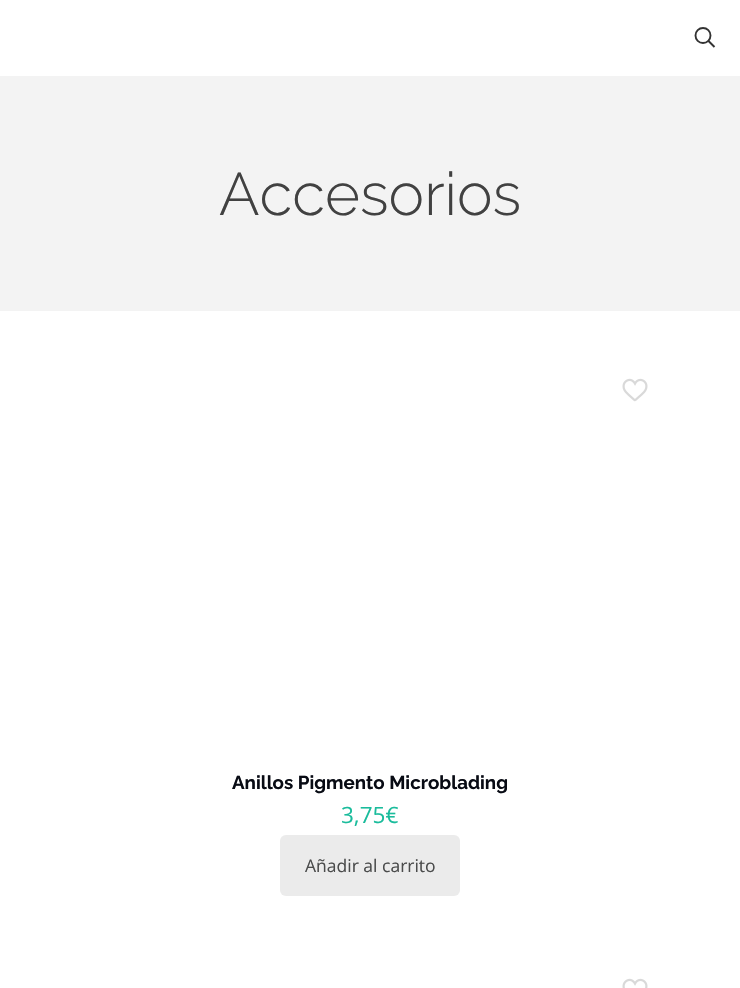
void draw(SkCanvas* c) {
SkPaint p;
p.setAntiAlias(true);
auto F=[&](const char* family, int weight, float size, bool italic = false){SkFontStyle style(weight, SkFontStyle::kNormal_Width,italic ? SkFontStyle::kItalic_Slant : SkFontStyle::kUpright_Slant);SkFont result(fontMgr->matchFamilyStyle(family, style), size);result.setSubpixel(true);return result;};
auto T=[&](const char* s, float x, float y, const SkFont& font){c->drawString(s, x, y, font, p);};
auto R=[&](float x, float y, float w, float h){c->drawRect(SkRect::MakeXYWH(x, y, w, h), p);};
auto Q=[&](float x, float y, float w, float h, float radius){c->drawRoundRect(SkRect::MakeXYWH(x, y, w, h), radius, radius, p);};
auto I=[&](const char* path, float x, float y, float w, float h){auto image = SkImages::DeferredFromEncodedData(SkData::MakeFromFileName(path));c->drawImageRect(image, SkRect::MakeXYWH(x, y, w, h), SkSamplingOptions());};
auto P=[&](const char* data, bool evenOdd = false){SkPath result = *SkParsePath::FromSVGString(data);if (evenOdd) result.setFillType(SkPathFillType::kEvenOdd);return result;};
c->clear(0xffffffff);
p.setColor(0xfff3f3f3);
R(0,76,740,235);
p.setStroke(true);
p.setStrokeWidth(1.9);
p.setColor(0xff333333);
c->drawCircle(703,35.5,7.5,p);
c->drawPath(P("M708 40.5l6.5 6.5"),p);
auto f1 = F("Raleway",300,60);
p.setStroke(false);
p.setColor(0xff414141);
T("Accesorios",219,215,f1);
I("1.png",622,378,26,24);
auto f2 = F("Raleway",700,18.75);
p.setColor(0xff080b14);
T("Anillos Pigmento Microblading",232,789,f2);
auto f3 = F("Open Sans",400,22.5);
p.setColor(0xff1abc9c);
T("3,75€",341,823,f3);
p.setColor(0xffebebeb);
Q(280,835,180,61,6);
auto f4 = F("Open Sans",400,17.5);
p.setColor(0xff4a4b4b);
T("Añadir al carrito",305,872,f4);
I("2.png",622,978,26,10);
}
